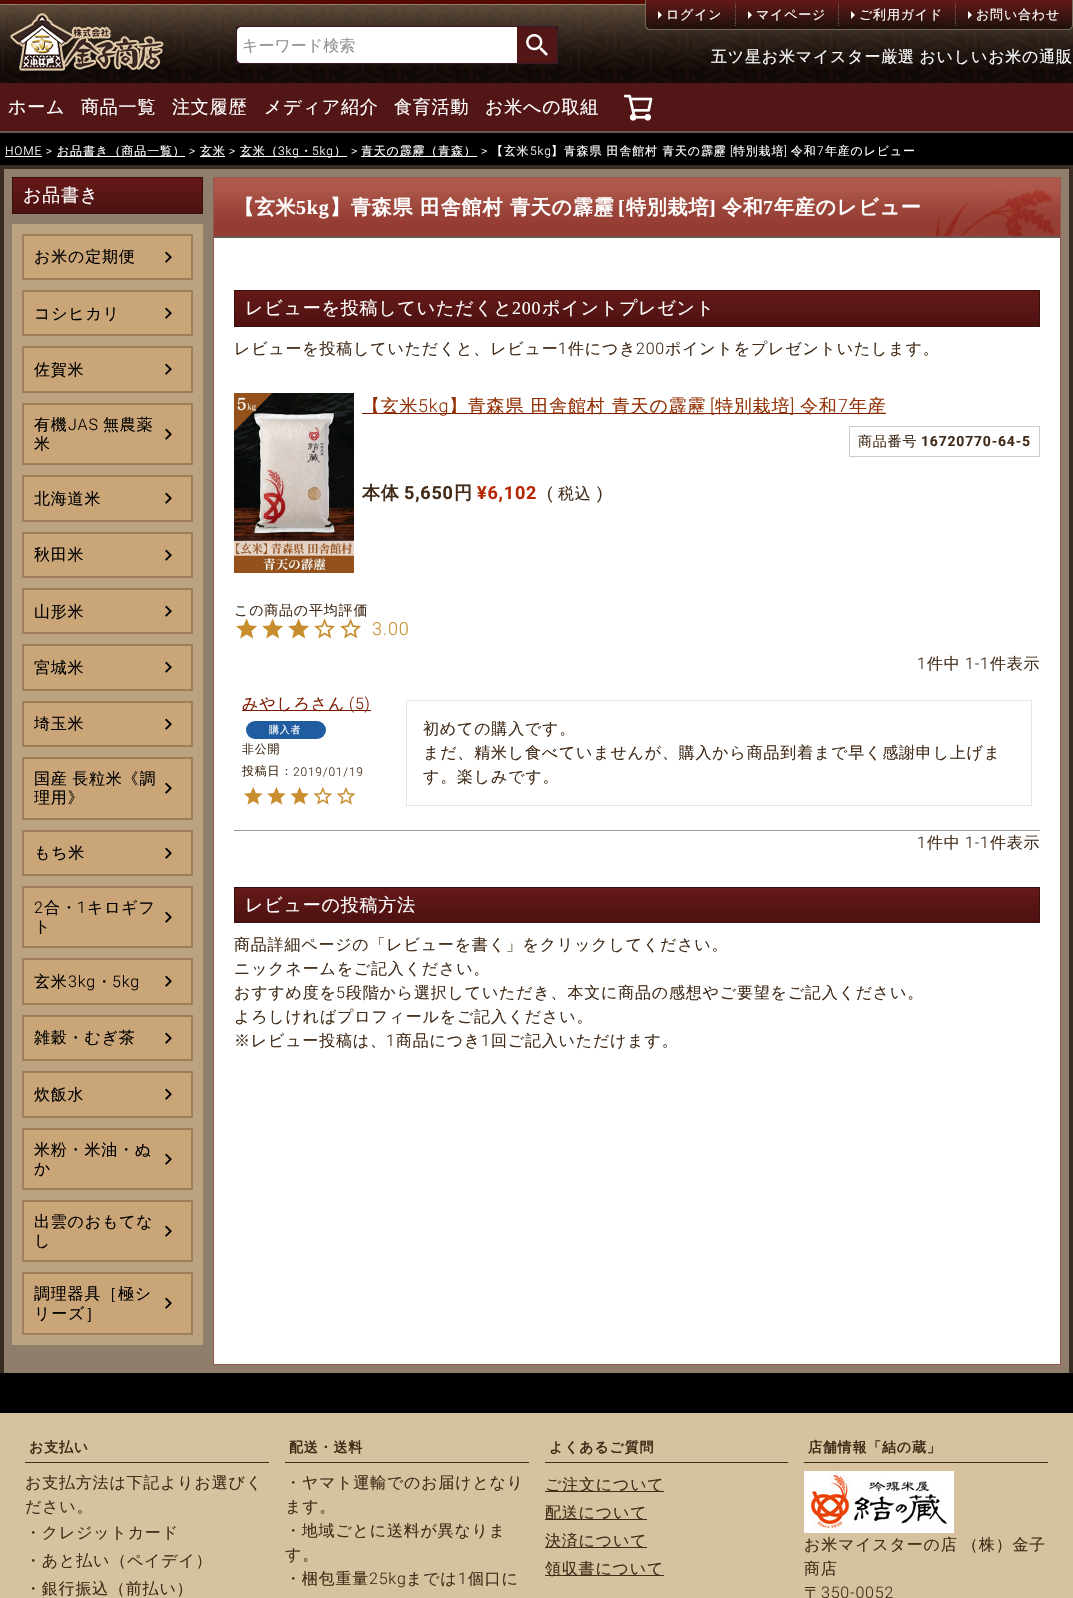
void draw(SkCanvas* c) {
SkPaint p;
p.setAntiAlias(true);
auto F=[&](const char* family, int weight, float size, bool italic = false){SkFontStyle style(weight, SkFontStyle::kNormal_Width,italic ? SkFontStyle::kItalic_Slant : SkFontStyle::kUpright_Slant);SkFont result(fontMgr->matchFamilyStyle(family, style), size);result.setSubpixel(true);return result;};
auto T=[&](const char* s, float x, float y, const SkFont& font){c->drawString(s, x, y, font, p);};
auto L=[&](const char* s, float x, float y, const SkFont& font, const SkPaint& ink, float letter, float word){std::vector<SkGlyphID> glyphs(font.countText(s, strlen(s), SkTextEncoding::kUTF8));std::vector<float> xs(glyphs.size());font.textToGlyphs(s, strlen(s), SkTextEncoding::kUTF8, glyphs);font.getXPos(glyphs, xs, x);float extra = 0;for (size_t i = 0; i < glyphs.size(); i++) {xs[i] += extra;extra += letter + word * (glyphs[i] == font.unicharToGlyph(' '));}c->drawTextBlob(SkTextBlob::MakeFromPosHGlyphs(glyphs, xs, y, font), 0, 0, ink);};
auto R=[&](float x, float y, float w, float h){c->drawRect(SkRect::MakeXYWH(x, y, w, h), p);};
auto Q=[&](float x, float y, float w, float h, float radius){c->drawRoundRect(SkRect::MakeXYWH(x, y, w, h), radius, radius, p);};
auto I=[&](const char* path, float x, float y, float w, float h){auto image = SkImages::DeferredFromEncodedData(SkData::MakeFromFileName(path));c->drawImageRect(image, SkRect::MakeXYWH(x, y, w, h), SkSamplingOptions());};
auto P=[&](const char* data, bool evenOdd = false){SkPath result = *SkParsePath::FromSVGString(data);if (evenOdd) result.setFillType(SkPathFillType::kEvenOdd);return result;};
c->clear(0xff000000);
I("1.png",0,0,1073,83);
I("2.png",10,13,155,60);
p.setColor(0xff371828);
R(236,26,322,38);
p.setColor(0xffffffff);
c->drawPath(P("M241 27h276v36h-276c-2 0-4-2-4-4v-28c0-2 2-4 4-4z"),p);
auto f1 = F("WenQuanYi Zen Hei",500,16);
p.setColor(0xff919191);
T("キーワード検索",242,51,f1);
p.setColor(0xff521616);
c->drawPath(P("M517 27h36c2 0 4 2 4 4v28c0 2-2 4-4 4h-36z"),p);
I("3.png",526,34,22,22);
c->save();
c->clipPath(P("M645 0h428v25c0 3-2 5-5 5h-418c-3 0-5-2-5-5z"),true);
{
const SkColor colors[] = {0xff651918,0xff1c110a};
const float stops[] = {0,1};
const SkPoint ends[] = {{859,0}, {859,29}};
p.setShader(SkGradientShader::MakeLinear(ends, colors, stops, 2, SkTileMode::kClamp));
p.setAlpha(255);
}
R(645,0,428,29);
c->restore();
p.setShader(nullptr);
p.setColor(0xff756a5a);
c->drawPath(P("M645 0h428v25c0 3-2 5-5 5h-418c-3 0-5-2-5-5zm1 0h426v25c0 2-2 4-4 4h-418c-2 0-4-2-4-4z",true),p);
p.setStroke(true);
p.setStrokeWidth(1);
p.setPathEffect(SkDashPathEffect::Make({{1,1}}, 0));
c->drawPath(P("M735.5 3v23"),p);
p.setPathEffect(nullptr);
p.setStroke(false);
p.setColor(0xffffffff);
c->drawPath(P("M658 19v-8l4 4z"),p);
auto f2 = F("WenQuanYi Zen Hei",500,13);
L("ログイン",666,19,f2,p,.8,0);
p.setStroke(true);
p.setColor(0xff756a5a);
p.setPathEffect(SkDashPathEffect::Make({{1,1}}, 0));
c->drawPath(P("M838.5 3v23"),p);
p.setPathEffect(nullptr);
p.setStroke(false);
p.setColor(0xffffffff);
c->drawPath(P("M748 19v-8l4 4z"),p);
L("マイページ",756,19,f2,p,.8,0);
p.setStroke(true);
p.setColor(0xff756a5a);
p.setPathEffect(SkDashPathEffect::Make({{1,1}}, 0));
c->drawPath(P("M955.5 3v23"),p);
p.setPathEffect(nullptr);
p.setStroke(false);
p.setColor(0xffffffff);
c->drawPath(P("M851 19v-8l4 4z"),p);
L("ご利用ガイド",859,19,f2,p,.8,0);
c->drawPath(P("M968 19v-8l4 4z"),p);
L("お問い合わせ",976,19,f2,p,.8,0);
L("五ツ星お米マイスター厳選 おいしいお米の通販",711,62,f1,p,.8,-1);
p.setColor(0xff521616);
R(0,83,1073,48);
p.setColor(0xff6a5858);
R(0,131,1073,2);
auto f3 = F("WenQuanYi Zen Hei",500,18);
p.setColor(0xffffffff);
L("ホーム",8,113,f3,p,.8,0);
L("商品一覧",81,113,f3,p,.8,0);
L("注文履歴",172,113,f3,p,.8,0);
L("メディア紹介",264,113,f3,p,.8,0);
L("食育活動",394,113,f3,p,.8,0);
L("お米への取組",485,113,f3,p,.8,0);
I("4.png",624,94,29,27);
auto f4 = F("Roboto",300,12);
L("HOME >",5,155,f4,p,.8,0);
R(5,156,37,1);
R(57,156,128,1);
auto f5 = F("WenQuanYi Zen Hei",500,12);
L("お品書き（商品一覧）",57,155,f5,p,.8,0);
L(">",189,155,f4,p,.8,0);
R(200,156,25,1);
L("玄米",200,155,f5,p,.8,0);
L(">",229,155,f4,p,.8,0);
R(240,156,107,1);
L("玄米（",240,155,f5,p,.8,0);
L("3kg",278,155,f4,p,.8,0);
L("・",300,155,f5,p,.8,0);
L("5kg",312,155,f4,p,.8,0);
L("）",334,155,f5,p,.8,0);
L(">",351,155,f4,p,.8,0);
R(361,156,116,1);
L("青天の霹靂（青森）",361,155,f5,p,.8,0);
L(">",481,155,f4,p,.8,0);
L("【玄米",491,155,f5,p,.8,0);
L("5kg",530,155,f4,p,.8,0);
L("】青森県 田舎館村 青天の霹靂",551,155,f5,p,.8,0);
L("[",730,155,f4,p,.8,0);
L("特別栽培",733,155,f5,p,.8,0);
L("]",784,155,f4,p,.8,0);
L("令和",791,155,f5,p,.8,0);
L("7",817,155,f4,p,.8,0);
L("年産のレビュー",825,155,f5,p,.8,0);
p.setColor(0xff8f7e6b);
R(4,169,1065,1204);
p.setColor(0xff392c23);
R(0,165,1073,4);
R(1069,165,4,1208);
R(0,165,4,1208);
{
const SkColor colors[] = {0xff651918,0xff4d1211};
const float stops[] = {0,1};
const SkPoint ends[] = {{108,178}, {108,213}};
p.setShader(SkGradientShader::MakeLinear(ends, colors, stops, 2, SkTileMode::kClamp));
p.setAlpha(255);
}
R(13,178,189,35);
p.setStroke(true);
p.setShader(nullptr);
p.setColor(0xff3a0f0f);
c->drawRect(SkRect::MakeXYWH(12.5,177.5,190,36),p);
p.setStroke(false);
p.setColor(0xffffffff);
L("お品書き",23,201,f3,p,.8,0);
p.setColor(0xffbaa37e);
R(12,224,191,1121);
p.setColor(0xffcaa577);
c->drawRect(SkRect::MakeXYWH(23,235,169,44),p);
p.setStroke(true);
p.setStrokeWidth(2);
p.setColor(0xff9e7f5a);
c->drawRect(SkRect::MakeXYWH(23,235,169,44),p);
p.setStroke(false);
p.setColor(0xff000000);
L("お米の定期便",34,262,f1,p,.8,0);
I("5.png",165,251,7,12);
p.setColor(0xffcaa577);
c->drawRect(SkRect::MakeXYWH(23,291,169,44),p);
p.setStroke(true);
p.setColor(0xff9e7f5a);
c->drawRect(SkRect::MakeXYWH(23,291,169,44),p);
p.setStroke(false);
p.setColor(0xff000000);
L("コシヒカリ",34,319,f1,p,.8,0);
I("5.png",165,307,7,12);
p.setColor(0xffcaa577);
c->drawRect(SkRect::MakeXYWH(23,347,169,45),p);
p.setStroke(true);
p.setColor(0xff9e7f5a);
c->drawRect(SkRect::MakeXYWH(23,347,169,45),p);
p.setStroke(false);
p.setColor(0xff000000);
L("佐賀米",34,375,f1,p,.8,0);
I("5.png",165,363,7,12);
p.setColor(0xffcaa577);
c->drawRect(SkRect::MakeXYWH(23,404,169,60),p);
p.setStroke(true);
p.setColor(0xff9e7f5a);
c->drawRect(SkRect::MakeXYWH(23,404,169,60),p);
p.setStroke(false);
p.setColor(0xff000000);
L("有機",34,430,f1,p,.8,0);
auto f6 = F("Roboto",300,16);
L("JAS",68,430,f6,p,.8,0);
L("無農薬",103,430,f1,p,.8,0);
L("米",34,449,f1,p,.8,0);
I("5.png",165,428,7,12);
p.setColor(0xffcaa577);
c->drawRect(SkRect::MakeXYWH(23,476,169,45),p);
p.setStroke(true);
p.setColor(0xff9e7f5a);
c->drawRect(SkRect::MakeXYWH(23,476,169,45),p);
p.setStroke(false);
p.setColor(0xff000000);
L("北海道米",34,504,f1,p,.8,0);
I("5.png",165,492,7,12);
p.setColor(0xffcaa577);
c->drawRect(SkRect::MakeXYWH(23,533,169,44),p);
p.setStroke(true);
p.setColor(0xff9e7f5a);
c->drawRect(SkRect::MakeXYWH(23,533,169,44),p);
p.setStroke(false);
p.setColor(0xff000000);
L("秋田米",34,560,f1,p,.8,0);
I("5.png",165,549,7,12);
p.setColor(0xffcaa577);
c->drawRect(SkRect::MakeXYWH(23,589,169,44),p);
p.setStroke(true);
p.setColor(0xff9e7f5a);
c->drawRect(SkRect::MakeXYWH(23,589,169,44),p);
p.setStroke(false);
p.setColor(0xff000000);
L("山形米",34,617,f1,p,.8,0);
I("5.png",165,605,7,12);
p.setColor(0xffcaa577);
c->drawRect(SkRect::MakeXYWH(23,645,169,45),p);
p.setStroke(true);
p.setColor(0xff9e7f5a);
c->drawRect(SkRect::MakeXYWH(23,645,169,45),p);
p.setStroke(false);
p.setColor(0xff000000);
L("宮城米",34,673,f1,p,.8,0);
I("5.png",165,661,7,12);
p.setColor(0xffcaa577);
c->drawRect(SkRect::MakeXYWH(23,702,169,44),p);
p.setStroke(true);
p.setColor(0xff9e7f5a);
c->drawRect(SkRect::MakeXYWH(23,702,169,44),p);
p.setStroke(false);
p.setColor(0xff000000);
L("埼玉米",34,729,f1,p,.8,0);
I("5.png",165,718,7,12);
p.setColor(0xffcaa577);
c->drawRect(SkRect::MakeXYWH(23,758,169,61),p);
p.setStroke(true);
p.setColor(0xff9e7f5a);
c->drawRect(SkRect::MakeXYWH(23,758,169,61),p);
p.setStroke(false);
p.setColor(0xff000000);
L("国産 長粒米《調",34,784,f1,p,.8,-1);
I("5.png",165,782,7,12);
L("理用》",34,803,f1,p,.8,0);
p.setColor(0xffcaa577);
c->drawRect(SkRect::MakeXYWH(23,831,169,44),p);
p.setStroke(true);
p.setColor(0xff9e7f5a);
c->drawRect(SkRect::MakeXYWH(23,831,169,44),p);
p.setStroke(false);
p.setColor(0xff000000);
L("もち米",34,858,f1,p,.8,0);
I("5.png",165,847,7,12);
p.setColor(0xffcaa577);
c->drawRect(SkRect::MakeXYWH(23,887,169,60),p);
p.setStroke(true);
p.setColor(0xff9e7f5a);
c->drawRect(SkRect::MakeXYWH(23,887,169,60),p);
p.setStroke(false);
p.setColor(0xff000000);
L("2",34,913,f6,p,.8,0);
L("合・",44,913,f1,p,.8,0);
L("1",77,913,f6,p,.8,0);
L("キロギフ",87,913,f1,p,.8,0);
I("5.png",165,911,7,12);
L("ト",34,932,f1,p,.8,0);
p.setColor(0xffcaa577);
c->drawRect(SkRect::MakeXYWH(23,959,169,45),p);
p.setStroke(true);
p.setColor(0xff9e7f5a);
c->drawRect(SkRect::MakeXYWH(23,959,169,45),p);
p.setStroke(false);
p.setColor(0xff000000);
L("玄米",34,987,f1,p,.8,0);
L("3kg",68,987,f6,p,.8,0);
L("・",96,987,f1,p,.8,0);
L("5kg",112,987,f6,p,.8,0);
I("5.png",165,975,7,12);
p.setColor(0xffcaa577);
c->drawRect(SkRect::MakeXYWH(23,1016,169,44),p);
p.setStroke(true);
p.setColor(0xff9e7f5a);
c->drawRect(SkRect::MakeXYWH(23,1016,169,44),p);
p.setStroke(false);
p.setColor(0xff000000);
L("雑穀・むぎ茶",34,1043,f1,p,.8,0);
I("5.png",165,1032,7,12);
p.setColor(0xffcaa577);
c->drawRect(SkRect::MakeXYWH(23,1072,169,45),p);
p.setStroke(true);
p.setColor(0xff9e7f5a);
c->drawRect(SkRect::MakeXYWH(23,1072,169,45),p);
p.setStroke(false);
p.setColor(0xff000000);
L("炊飯水",34,1100,f1,p,.8,0);
I("5.png",165,1088,7,12);
p.setColor(0xffcaa577);
c->drawRect(SkRect::MakeXYWH(23,1129,169,60),p);
p.setStroke(true);
p.setColor(0xff9e7f5a);
c->drawRect(SkRect::MakeXYWH(23,1129,169,60),p);
p.setStroke(false);
p.setColor(0xff000000);
L("米粉・米油・ぬ",34,1155,f1,p,.8,0);
I("5.png",165,1153,7,12);
L("か",34,1174,f1,p,.8,0);
p.setColor(0xffcaa577);
c->drawRect(SkRect::MakeXYWH(23,1201,169,60),p);
p.setStroke(true);
p.setColor(0xff9e7f5a);
c->drawRect(SkRect::MakeXYWH(23,1201,169,60),p);
p.setStroke(false);
p.setColor(0xff000000);
L("出雲のおもてな",34,1227,f1,p,.8,0);
I("5.png",165,1225,7,12);
L("し",34,1246,f1,p,.8,0);
p.setColor(0xffcaa577);
c->drawRect(SkRect::MakeXYWH(23,1273,169,61),p);
p.setStroke(true);
p.setColor(0xff9e7f5a);
c->drawRect(SkRect::MakeXYWH(23,1273,169,61),p);
p.setStroke(false);
p.setColor(0xff000000);
L("調理器具［極シ",34,1299,f1,p,.8,0);
I("5.png",165,1297,7,12);
L("リーズ］",34,1319,f1,p,.8,0);
p.setColor(0xffffffff);
R(214,238,846,1126);
p.setStroke(true);
p.setStrokeWidth(1);
p.setColor(0xff9b594e);
c->drawRect(SkRect::MakeXYWH(213.5,177.5,847,1187),p);
p.setStroke(false);
p.setColor(0xffae584b);
R(214,178,846,11);
I("6.png",214,189,846,47);
p.setColor(0xff6a5858);
R(214,236,846,2);
auto f7 = F("WenQuanYi Zen Hei",700,20);
p.setColor(0xffffffff);
L("【玄米",234,214,f7,p,.8,0);
auto f8 = F("Liberation Serif",700,20);
L("5kg",296,214,f8,p,.8,0);
L("】青森県 田舎館村 青天の霹靂",330,214,f7,p,.8,0);
L("[",618,214,f8,p,.8,0);
L("特別栽培",626,214,f7,p,.8,0);
L("]",709,214,f8,p,.8,0);
L("令和",722,214,f7,p,.8,0);
L("7",763,214,f8,p,.8,0);
L("年産のレビュー",774,214,f7,p,.8,0);
{
const SkColor colors[] = {0xff651918,0xff4d1211};
const float stops[] = {0,1};
const SkPoint ends[] = {{637,291}, {637,326}};
p.setShader(SkGradientShader::MakeLinear(ends, colors, stops, 2, SkTileMode::kClamp));
p.setAlpha(255);
}
R(235,291,804,35);
p.setStroke(true);
p.setShader(nullptr);
p.setColor(0xff3a0f0f);
c->drawRect(SkRect::MakeXYWH(234.5,290.5,805,36),p);
p.setStroke(false);
p.setColor(0xffffffff);
L("レビューを投稿していただくと",245,314,f3,p,.8,0);
auto f9 = F("Liberation Serif",400,18);
L("200",512,314,f9,p,.8,0);
L("ポイントプレゼント",542,314,f3,p,.8,0);
p.setColor(0xff422c19);
L("レビューを投稿していただくと、レビュー",234,354,f1,p,.8,0);
L("1",558,354,f6,p,.8,0);
L("件につき",568,354,f1,p,.8,0);
L("200",636,354,f6,p,.8,0);
L("ポイントをプレゼントいたします。",665,354,f1,p,.8,0);
I("7.png",234,393,120,180);
p.setColor(0xff7e1b02);
R(362,413,524,1);
p.setColor(0xff933105);
L("【玄米",362,412,f3,p,.8,0);
auto f10 = F("Roboto",300,18);
L("5kg",418,412,f10,p,.8,0);
L("】青森県 田舎館村 青天の霹靂",449,412,f3,p,.8,0);
L("[",710,412,f10,p,.8,0);
L("特別栽培",715,412,f3,p,.8,0);
L("]",790,412,f10,p,.8,0);
L("令和",800,412,f3,p,.8,0);
L("7",838,412,f10,p,.8,0);
L("年産",849,412,f3,p,.8,0);
p.setStroke(true);
p.setColor(0xffcccccc);
c->drawRect(SkRect::MakeXYWH(849.5,426.5,190,30),p);
auto f11 = F("WenQuanYi Zen Hei",500,14);
p.setStroke(false);
p.setColor(0xff422c19);
L("商品番号",858,446,f11,p,.8,0);
auto f12 = F("Roboto",700,14);
L("16720770-64-5",921,446,f12,p,.8,0);
auto f13 = F("WenQuanYi Zen Hei",700,18);
L("本体",362,499,f13,p,.8,0);
auto f14 = F("Roboto",700,18);
L("5,650",404,499,f14,p,.8,0);
L("円",454,499,f13,p,.8,0);
p.setColor(0xffb62602);
L("¥6,102",477,499,f14,p,.8,0);
auto f15 = F("Roboto",400,16);
p.setColor(0xff422c19);
L("(",547,499,f15,p,.8,0);
L("税込",558,499,f1,p,.8,0);
L(")",597,499,f15,p,.8,0);
L("この商品の平均評価",234,615,f11,p,.8,0);
I("8.png",236,618,125,21);
p.setColor(0xffc78d2f);
L("3.00",372,635,f10,p,.8,0);
p.setColor(0xff422c19);
L("1",917,669,f6,p,.8,0);
L("件中",927,669,f1,p,.8,0);
L("1-1",965,669,f6,p,.8,0);
L("件表示",990,669,f1,p,.8,0);
p.setColor(0xff999999);
R(234,830,806,1);
p.setColor(0xff7e1b02);
R(242,710,129,1);
L("みやしろさん",242,709,f1,p,.8,0);
L("(5)",349,709,f6,p,.8,0);
p.setColor(0xff1f5da0);
Q(246,721,80,18,9);
auto f16 = F("WenQuanYi Zen Hei",500,10);
p.setColor(0xffffffff);
L("購入者",269,733,f16,p,.8,0);
p.setColor(0xff422c19);
L("非公開",242,753,f5,p,.8,0);
L("投稿日：",242,775,f5,p,.8,0);
L("2019/01/19",293,776,f4,p,.8,0);
I("9.png",244,787,112,18);
p.setStroke(true);
p.setColor(0xffe5e5e5);
c->drawRect(SkRect::MakeXYWH(406.5,700.5,625,105),p);
p.setStroke(false);
p.setColor(0xff422c19);
L("初めての購入です。",423,734,f1,p,.8,0);
L("まだ、精米し食べていませんが、購入から商品到着まで早く感謝申し上げま",423,758,f1,p,.8,0);
L("す。楽しみです。",423,782,f1,p,.8,0);
L("1",917,848,f6,p,.8,0);
L("件中",927,848,f1,p,.8,0);
L("1-1",965,848,f6,p,.8,0);
L("件表示",990,848,f1,p,.8,0);
{
const SkColor colors[] = {0xff651918,0xff4d1211};
const float stops[] = {0,1};
const SkPoint ends[] = {{637,888}, {637,922}};
p.setShader(SkGradientShader::MakeLinear(ends, colors, stops, 2, SkTileMode::kClamp));
p.setAlpha(255);
}
R(235,888,804,34);
p.setStroke(true);
p.setShader(nullptr);
p.setColor(0xff3a0f0f);
c->drawRect(SkRect::MakeXYWH(234.5,887.5,805,35),p);
p.setStroke(false);
p.setColor(0xffffffff);
L("レビューの投稿方法",245,911,f3,p,.8,0);
p.setColor(0xff422c19);
L("商品詳細ページの「レビューを書く」をクリックしてください。",234,950,f1,p,.8,0);
L("ニックネームをご記入ください。",234,974,f1,p,.8,0);
L("おすすめ度を",234,998,f1,p,.8,0);
L("5",336,998,f6,p,.8,0);
L("段階から選択していただき、本文に商品の感想やご要望をご記入ください。",346,998,f1,p,.8,0);
L("よろしければプロフィールをご記入ください。",234,1022,f1,p,.8,0);
L("※レビュー投稿は、",234,1046,f1,p,.8,0);
L("1",386,1046,f6,p,.8,0);
L("商品につき",396,1046,f1,p,.8,0);
L("1",481,1046,f6,p,.8,0);
L("回ご記入いただけます。",491,1046,f1,p,.8,0);
p.setColor(0xffd7c29f);
R(0,1413,1073,185);
p.setColor(0xff422c19);
R(25,1462,244,1);
auto f17 = F("WenQuanYi Zen Hei",700,14);
L("お支払い",29,1452,f17,p,.8,0);
L("お支払方法は下記よりお選びく",25,1488,f1,p,.8,0);
L("ださい。",25,1512,f1,p,.8,0);
L("・クレジットカード",25,1538,f1,p,.8,0);
L("・あと払い（ペイデイ）",25,1566,f1,p,.8,0);
L("・銀行振込（前払い）",25,1594,f1,p,.8,0);
R(285,1462,244,1);
L("配送・送料",289,1452,f17,p,.8,0);
L("・ヤマト運輸でのお届けとなり",285,1488,f1,p,.8,0);
L("ます。",285,1512,f1,p,.8,0);
L("・地域ごとに送料が異なりま",285,1536,f1,p,.8,0);
L("す。",285,1560,f1,p,.8,0);
L("・梱包重量",285,1584,f1,p,.8,0);
L("25kg",369,1584,f6,p,.8,0);
L("までは",406,1584,f1,p,.8,0);
L("1",458,1584,f6,p,.8,0);
L("個口に",468,1584,f1,p,.8,0);
R(545,1462,243,1);
L("よくあるご質問",549,1452,f17,p,.8,0);
R(545,1491,119,1);
L("ご注文について",545,1490,f1,p,.8,0);
R(545,1519,102,1);
L("配送について",545,1518,f1,p,.8,0);
R(545,1547,102,1);
L("決済について",545,1546,f1,p,.8,0);
R(545,1575,119,1);
L("領収書について",545,1574,f1,p,.8,0);
R(804,1462,244,1);
L("店舗情報「結の蔵」",808,1452,f17,p,.8,0);
I("10.png",804,1471,150,62);
L("お米マイスターの店 （株）金子",804,1550,f1,p,.8,-1);
L("商店",804,1574,f1,p,.8,0);
L("〒",804,1598,f1,p,.8,0);
L("350-0052",821,1598,f6,p,.8,0);
}
